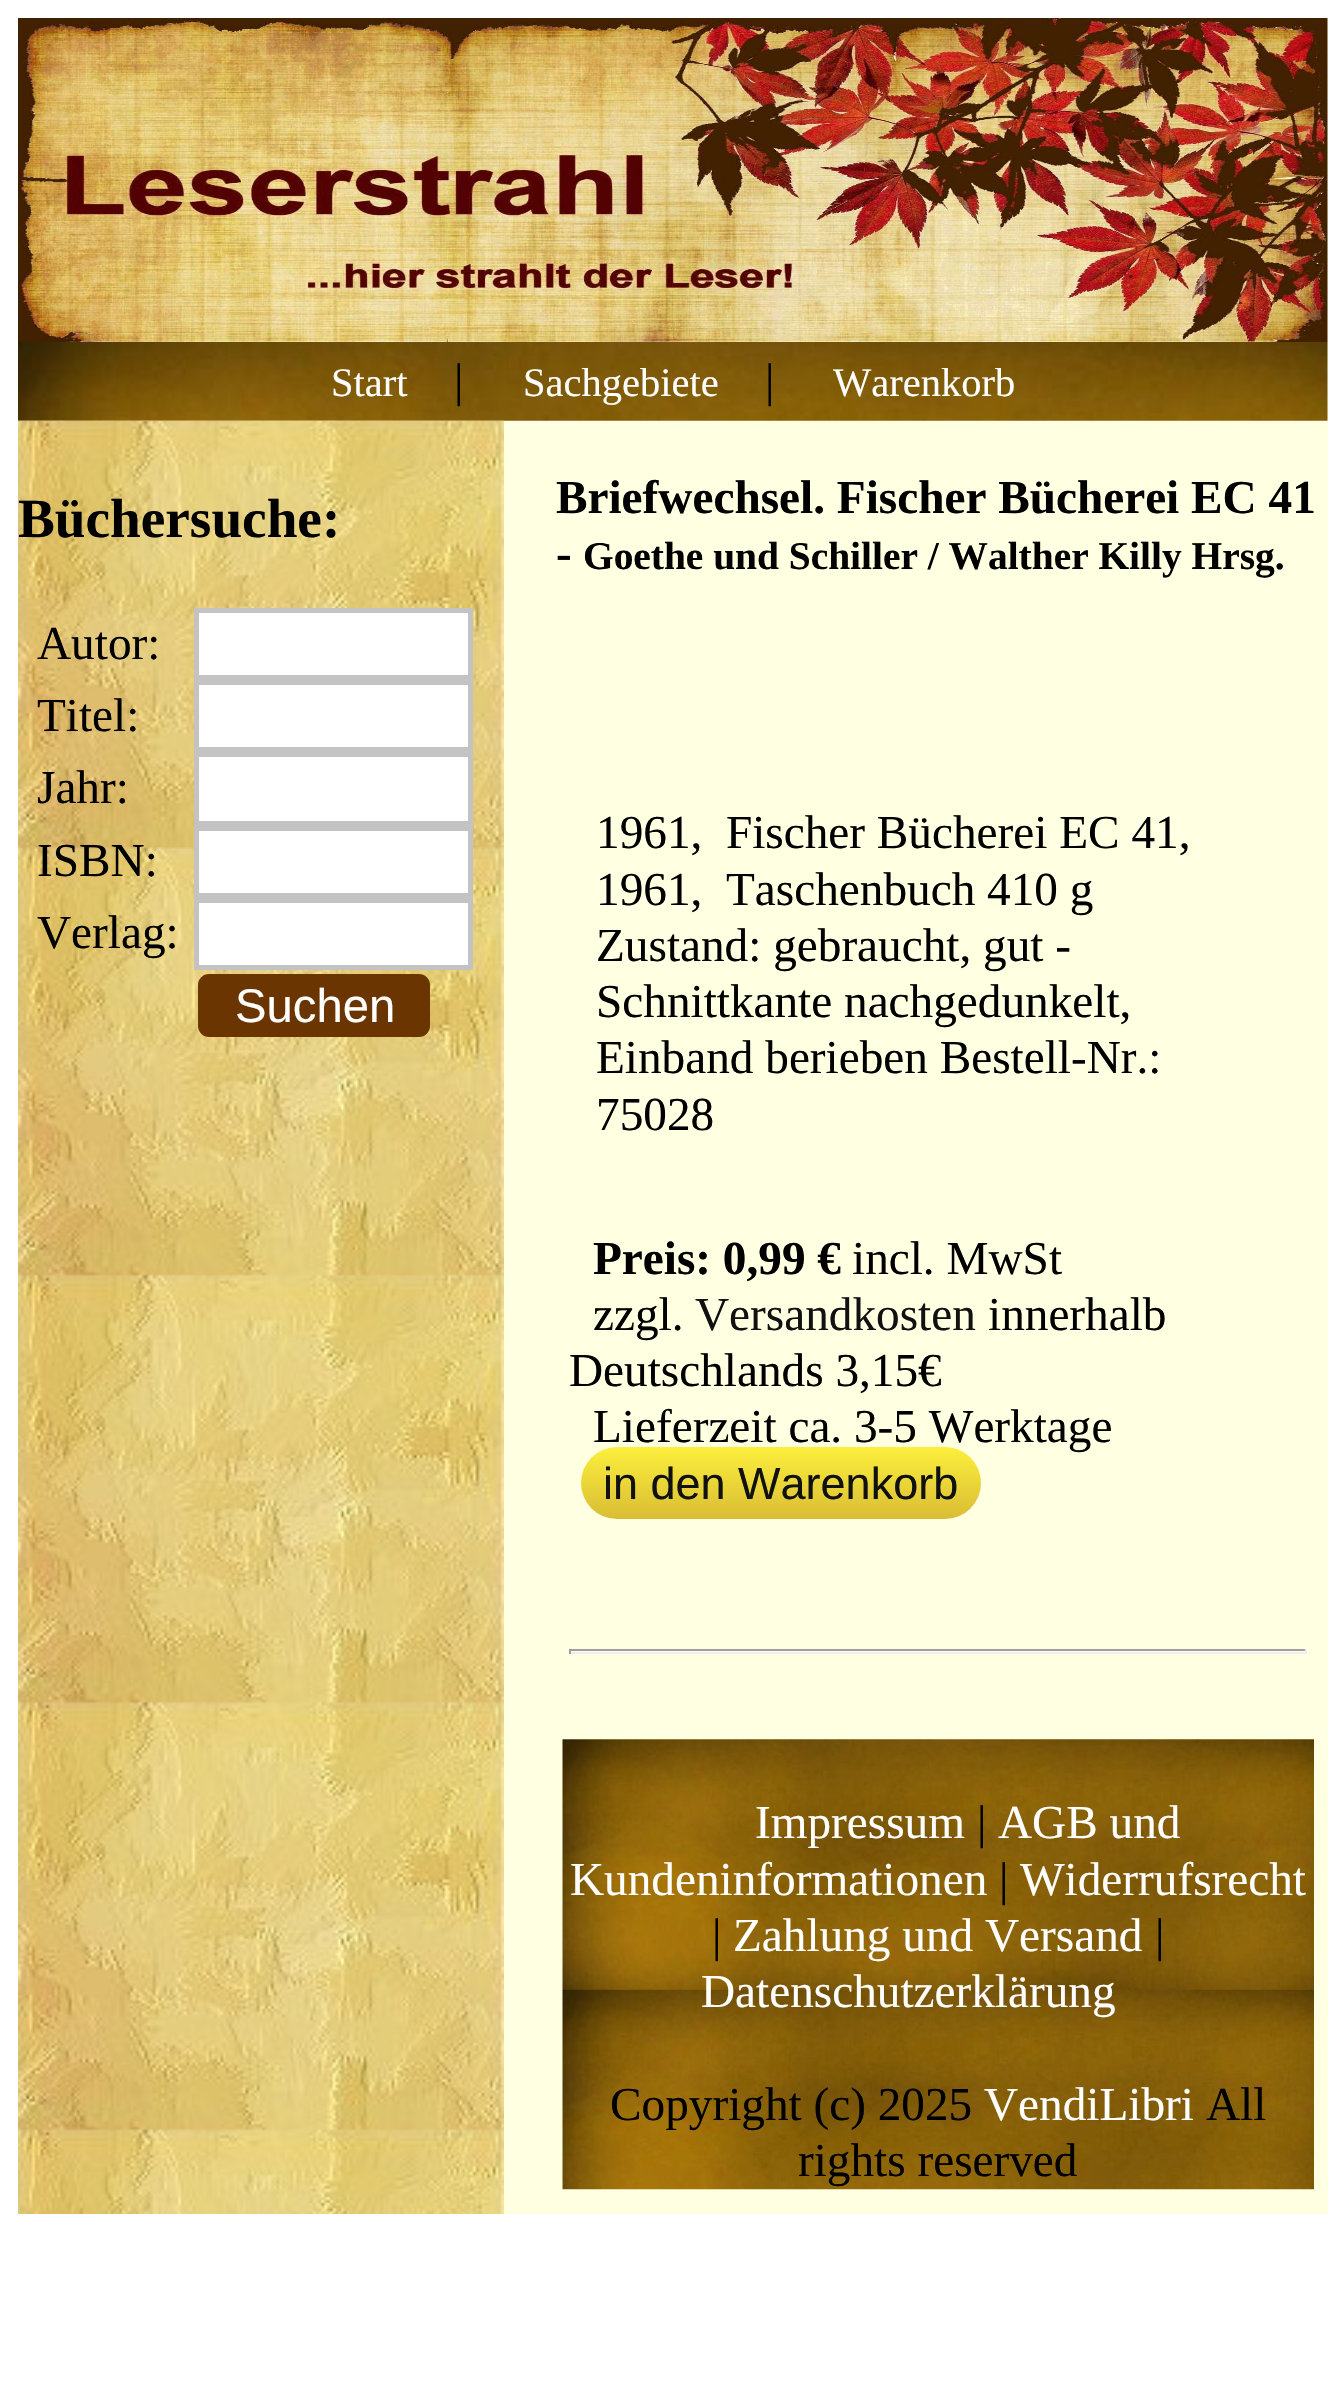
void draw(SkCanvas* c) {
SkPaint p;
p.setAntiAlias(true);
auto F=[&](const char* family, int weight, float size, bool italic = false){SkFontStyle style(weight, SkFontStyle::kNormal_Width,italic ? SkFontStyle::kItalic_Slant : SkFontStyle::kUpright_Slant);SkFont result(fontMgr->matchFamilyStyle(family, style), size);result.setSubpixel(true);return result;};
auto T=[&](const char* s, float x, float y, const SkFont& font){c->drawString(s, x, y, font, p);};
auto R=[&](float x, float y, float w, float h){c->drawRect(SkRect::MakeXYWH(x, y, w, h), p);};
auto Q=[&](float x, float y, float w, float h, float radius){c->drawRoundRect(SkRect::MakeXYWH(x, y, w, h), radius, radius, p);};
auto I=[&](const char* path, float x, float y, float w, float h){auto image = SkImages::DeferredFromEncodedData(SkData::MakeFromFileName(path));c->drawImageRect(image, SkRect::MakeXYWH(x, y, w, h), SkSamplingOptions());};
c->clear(0xffffffff);
p.setColor(0xffffffe1);
R(18,18,1310,2196);
I("1.png",18,18,1310,324);
I("2.png",18,342,1310,79);
auto f1 = F("Liberation Serif",400,40.5);
p.setColor(0xffffffff);
T("Start",331,396,f1);
auto f2 = F("Liberation Serif",400,47.25);
p.setColor(0xff000000);
T("|",454,396,f2);
p.setColor(0xffffffff);
T("Sachgebiete",523,396,f1);
p.setColor(0xff000000);
T("|",765,396,f2);
p.setColor(0xffffffff);
T("Warenkorb",833,396,f1);
I("3.png",18,420,486,1794);
auto f3 = F("Liberation Serif",700,55.25);
p.setColor(0xff000000);
T("Büchersuche:",18,537,f3);
T("Autor:",37,659,f2);
p.setColor(0xffffffff);
c->drawRect(SkRect::MakeXYWH(196.5,610.5,274,67),p);
p.setStroke(true);
p.setStrokeWidth(5);
p.setColor(0xffc3c3c3);
c->drawRect(SkRect::MakeXYWH(196.5,610.5,274,67),p);
p.setStroke(false);
p.setColor(0xff000000);
T("Titel:",37,731,f2);
p.setColor(0xffffffff);
c->drawRect(SkRect::MakeXYWH(196.5,682.5,274,67),p);
p.setStroke(true);
p.setColor(0xffc3c3c3);
c->drawRect(SkRect::MakeXYWH(196.5,682.5,274,67),p);
p.setStroke(false);
p.setColor(0xff000000);
T("Jahr:",37,803,f2);
p.setColor(0xffffffff);
c->drawRect(SkRect::MakeXYWH(196.5,754.5,274,69),p);
p.setStroke(true);
p.setColor(0xffc3c3c3);
c->drawRect(SkRect::MakeXYWH(196.5,754.5,274,69),p);
p.setStroke(false);
p.setColor(0xff000000);
T("ISBN:",37,876,f2);
p.setColor(0xffffffff);
c->drawRect(SkRect::MakeXYWH(196.5,828.5,274,67),p);
p.setStroke(true);
p.setColor(0xffc3c3c3);
c->drawRect(SkRect::MakeXYWH(196.5,828.5,274,67),p);
p.setStroke(false);
p.setColor(0xff000000);
T("Verlag:",37,948,f2);
p.setColor(0xffffffff);
c->drawRect(SkRect::MakeXYWH(196.5,900.5,274,67),p);
p.setStroke(true);
p.setColor(0xffc3c3c3);
c->drawRect(SkRect::MakeXYWH(196.5,900.5,274,67),p);
p.setStroke(false);
p.setColor(0xff6a3500);
Q(198,974,232,63,11);
auto f4 = F("Liberation Sans",400,47.25);
p.setColor(0xffffffff);
T("Suchen",235,1022,f4);
auto f5 = F("Liberation Serif",700,47.25);
p.setColor(0xff000000);
T("Briefwechsel. Fischer Bücherei EC 41",556,513,f5);
T("-",556,569,f5);
auto f6 = F("Liberation Serif",700,39.4);
T("Goethe und Schiller / Walther Killy Hrsg.",583,569,f6);
T("1961,  Fischer Bücherei EC 41,",596,848,f2);
T("1961,",596,905,f2);
T("Taschenbuch 410 g",726,905,f2);
T("Zustand: gebraucht, gut -",596,961,f2);
T("Schnittkante nachgedunkelt,",596,1017,f2);
T("Einband berieben Bestell-Nr.:",596,1073,f2);
T("75028",596,1130,f2);
T("Preis: 0,99 €",593,1274,f5);
T("incl. MwSt",852,1274,f2);
T("zzgl.",593,1330,f2);
p.setColor(0xff111111);
T("Versandkosten",695,1330,f2);
p.setColor(0xff000000);
T("innerhalb",988,1330,f2);
T("Deutschlands 3,15€",569,1386,f2);
T("Lieferzeit ca. 3-5 Werktage",593,1442,f2);
{
const SkColor colors[] = {0xfffcef3c,0xffd9bd34};
const float stops[] = {0,1};
const SkPoint ends[] = {{781,1447}, {781,1519}};
p.setShader(SkGradientShader::MakeLinear(ends, colors, stops, 2, SkTileMode::kClamp));
p.setAlpha(255);
}
Q(581,1447,400,72,36);
auto f7 = F("Liberation Sans",400,45);
p.setShader(nullptr);
p.setColor(0xff111111);
T("in den Warenkorb",603,1499,f7);
p.setColor(0xff9f9f9f);
R(569,1649,738,2);
p.setColor(0xffeeeeee);
R(1305,1649,2,5);
R(569,1652,738,2);
p.setColor(0xff9f9f9f);
R(569,1649,2,5);
I("4.png",562,1739,752,451);
p.setColor(0xffffffff);
T("Impressum",755,1838,f2);
p.setColor(0xff000000);
T("|",977,1838,f2);
p.setColor(0xffffffff);
T("AGB und",998,1838,f2);
T("Kundeninformationen",570,1895,f2);
p.setColor(0xff000000);
T("|",999,1895,f2);
p.setColor(0xffffffff);
T("Widerrufsrecht",1020,1895,f2);
p.setColor(0xff000000);
T("|",712,1951,f2);
p.setColor(0xffffffff);
T("Zahlung und Versand",733,1951,f2);
p.setColor(0xff000000);
T("|",1155,1951,f2);
p.setColor(0xffffffff);
T("Datenschutzerklärung",701,2007,f2);
p.setColor(0xff000000);
T("Copyright (c) 2025",610,2120,f2);
p.setColor(0xffffffff);
T("VendiLibri",984,2120,f2);
p.setColor(0xff000000);
T("All",1206,2120,f2);
T("rights reserved",798,2176,f2);
}
